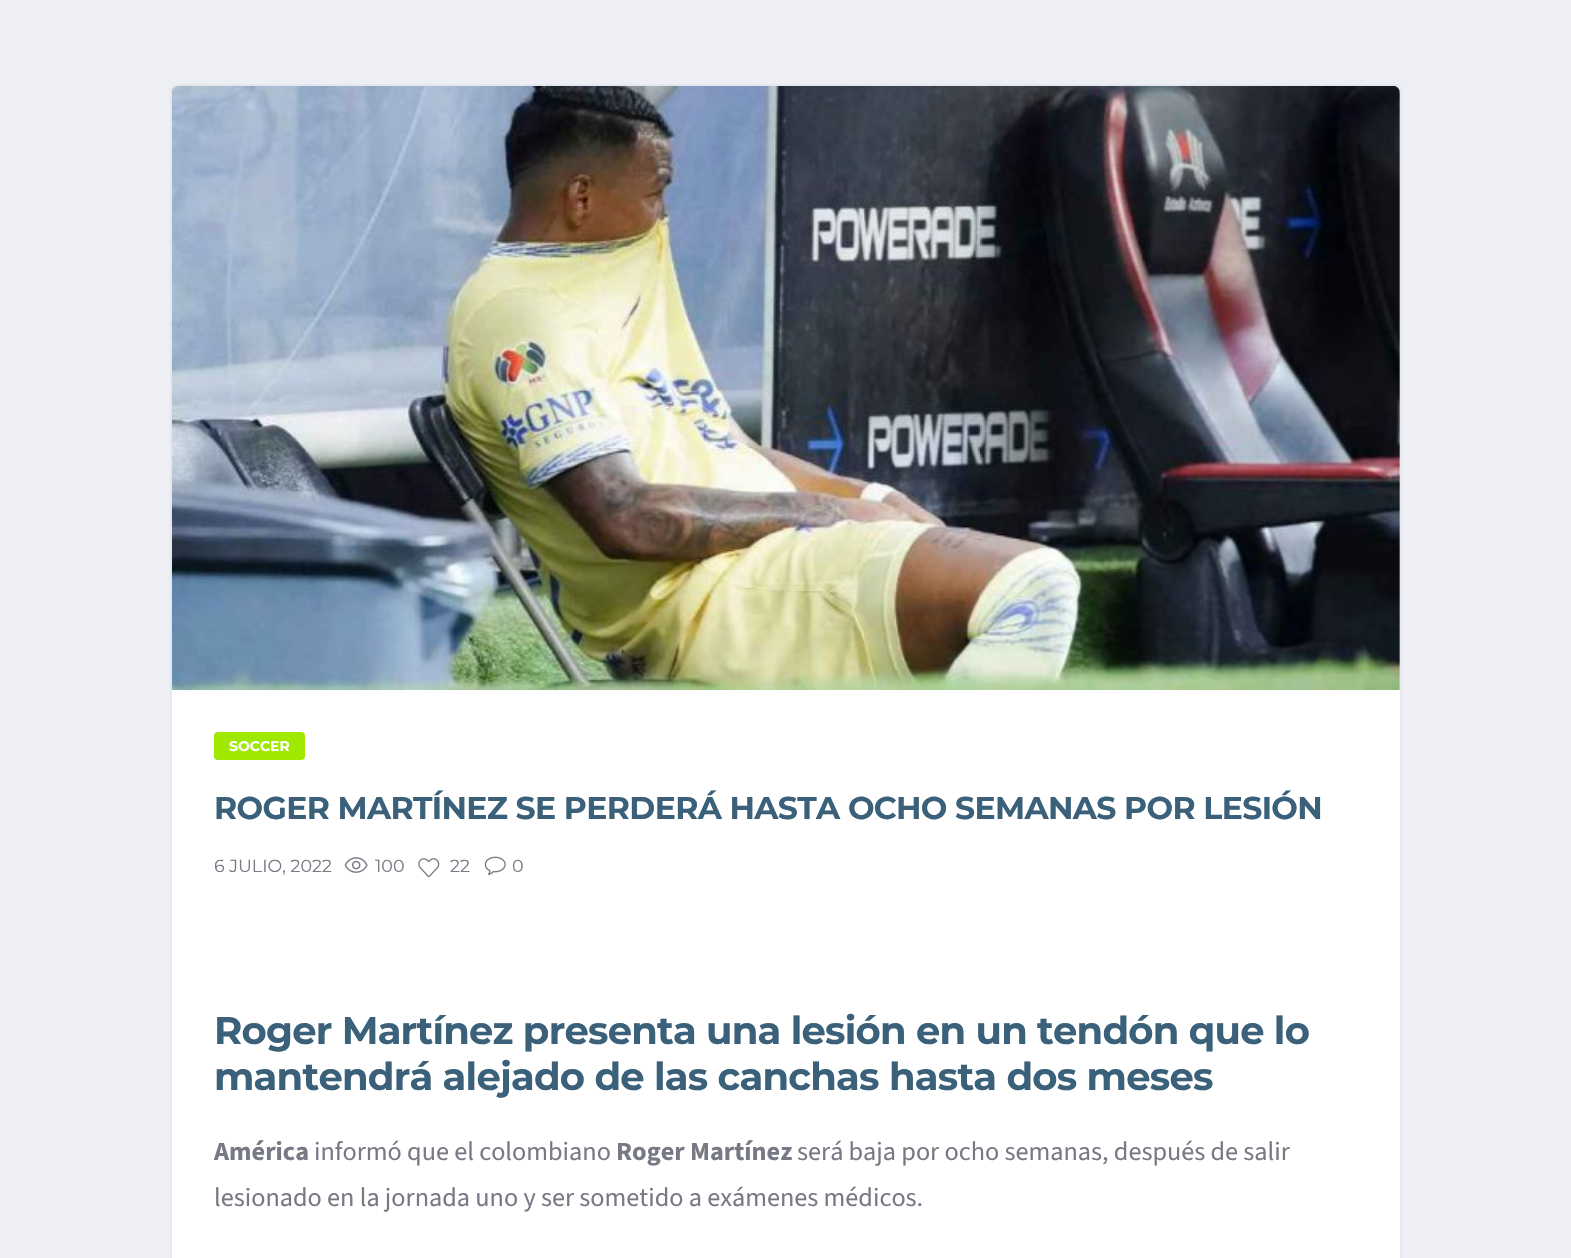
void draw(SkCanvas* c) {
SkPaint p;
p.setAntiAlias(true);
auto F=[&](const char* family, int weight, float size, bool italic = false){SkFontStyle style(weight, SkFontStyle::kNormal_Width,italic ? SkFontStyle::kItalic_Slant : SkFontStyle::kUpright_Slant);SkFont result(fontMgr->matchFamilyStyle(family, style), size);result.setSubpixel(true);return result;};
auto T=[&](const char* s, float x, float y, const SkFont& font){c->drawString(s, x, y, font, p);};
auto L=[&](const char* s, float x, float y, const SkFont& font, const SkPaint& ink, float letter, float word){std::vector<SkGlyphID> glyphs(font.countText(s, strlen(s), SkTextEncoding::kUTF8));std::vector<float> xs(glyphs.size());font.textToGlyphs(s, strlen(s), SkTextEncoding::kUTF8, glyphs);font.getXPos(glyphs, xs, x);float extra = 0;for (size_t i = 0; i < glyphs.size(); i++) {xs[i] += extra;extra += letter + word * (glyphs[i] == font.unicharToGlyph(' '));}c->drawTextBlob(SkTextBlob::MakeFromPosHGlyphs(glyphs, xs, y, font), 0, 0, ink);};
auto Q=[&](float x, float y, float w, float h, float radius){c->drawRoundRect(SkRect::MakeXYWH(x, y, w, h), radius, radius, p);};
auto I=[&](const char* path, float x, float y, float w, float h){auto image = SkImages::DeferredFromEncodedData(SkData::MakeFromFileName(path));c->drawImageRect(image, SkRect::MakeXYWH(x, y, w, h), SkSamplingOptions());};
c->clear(0xffedeff4);
p.setColor(0xffffffff);
c->drawRoundRect(SkRect::MakeXYWH(171,85,1230,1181),6,6,p);
p.setStroke(true);
p.setStrokeWidth(2);
p.setColor(0xffe4e7ed);
c->drawRoundRect(SkRect::MakeXYWH(171,85,1230,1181),6,6,p);
I("1.png",172,86,1228,604);
p.setStroke(false);
p.setColor(0xff9fe900);
Q(214,732,91,28,4);
auto f1 = F("Montserrat",700,14);
p.setColor(0xffffffff);
T("SOCCER",229,751,f1);
auto f2 = F("Montserrat",700,31.5);
p.setColor(0xff3b617a);
L("ROGER MARTÍNEZ SE PERDERÁ HASTA OCHO SEMANAS POR LESIÓN",214,819,f2,p,-.63,0);
auto f3 = F("Montserrat",100,17.5);
p.setColor(0xff777984);
T("6 JULIO, 2022",214,872,f3);
I("2.png",344,857,24,16);
T("100",375,872,f3);
I("3.png",418,858,22,19);
T("22",450,872,f3);
I("4.png",484,856,22,19);
T("0",512,872,f3);
auto f4 = F("Montserrat",700,38.5);
p.setColor(0xff3b617a);
L("Roger Martínez presenta una lesión en un tendón que lo",214,1044,f4,p,-.77,0);
L("mantendrá alejado de las canchas hasta dos meses",214,1090,f4,p,-.77,0);
auto f5 = F("Source Sans 3",700,26.25);
p.setColor(0xff777984);
T("América",214,1160,f5);
auto f6 = F("Source Sans 3",400,26.25);
T("informó que el colombiano",314,1160,f6);
T("Roger Martínez",616,1160,f5);
T("será baja por ocho semanas, después de salir",797,1160,f6);
T("lesionado en la jornada uno y ser sometido a exámenes médicos.",214,1206,f6);
}
